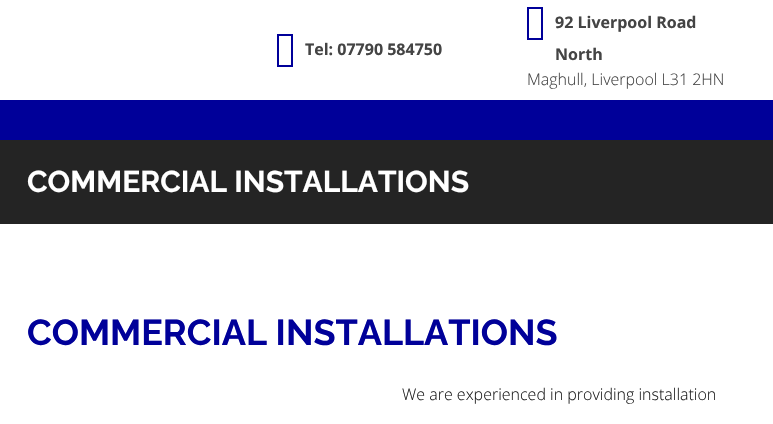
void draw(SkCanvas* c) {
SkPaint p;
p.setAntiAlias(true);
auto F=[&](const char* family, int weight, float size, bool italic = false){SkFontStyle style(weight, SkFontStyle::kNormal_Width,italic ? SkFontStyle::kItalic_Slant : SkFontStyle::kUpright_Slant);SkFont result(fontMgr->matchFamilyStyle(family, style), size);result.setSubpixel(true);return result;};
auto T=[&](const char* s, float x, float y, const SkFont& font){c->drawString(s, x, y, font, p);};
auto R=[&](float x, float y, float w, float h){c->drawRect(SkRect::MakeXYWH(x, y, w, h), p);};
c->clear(0xffffffff);
p.setColor(0xff000099);
R(0,100,773,40);
p.setStroke(true);
p.setStrokeWidth(2);
c->drawRect(SkRect::MakeXYWH(278,35,14,31),p);
auto f1 = F("Open Sans",700,16);
p.setStroke(false);
p.setColor(0xff444444);
T("Tel: 07790 584750",305,55,f1);
p.setStroke(true);
p.setColor(0xff000099);
c->drawRect(SkRect::MakeXYWH(528,8,14,31),p);
p.setStroke(false);
p.setColor(0xff444444);
T("92 Liverpool Road",555,28,f1);
T("North",555,60,f1);
auto f2 = F("Open Sans",300,16);
T("Maghull, Liverpool L31 2HN",527,85,f2);
p.setColor(0xff242424);
R(0,140,773,84);
auto f3 = F("Raleway",700,30);
p.setColor(0xffffffff);
T("COMMERCIAL INSTALLATIONS",27,192,f3);
auto f4 = F("Raleway",700,36);
p.setColor(0xff000099);
T("COMMERCIAL INSTALLATIONS",27,345,f4);
p.setColor(0xff222222);
T("We are experienced in providing installation",402,400,f2);
}
